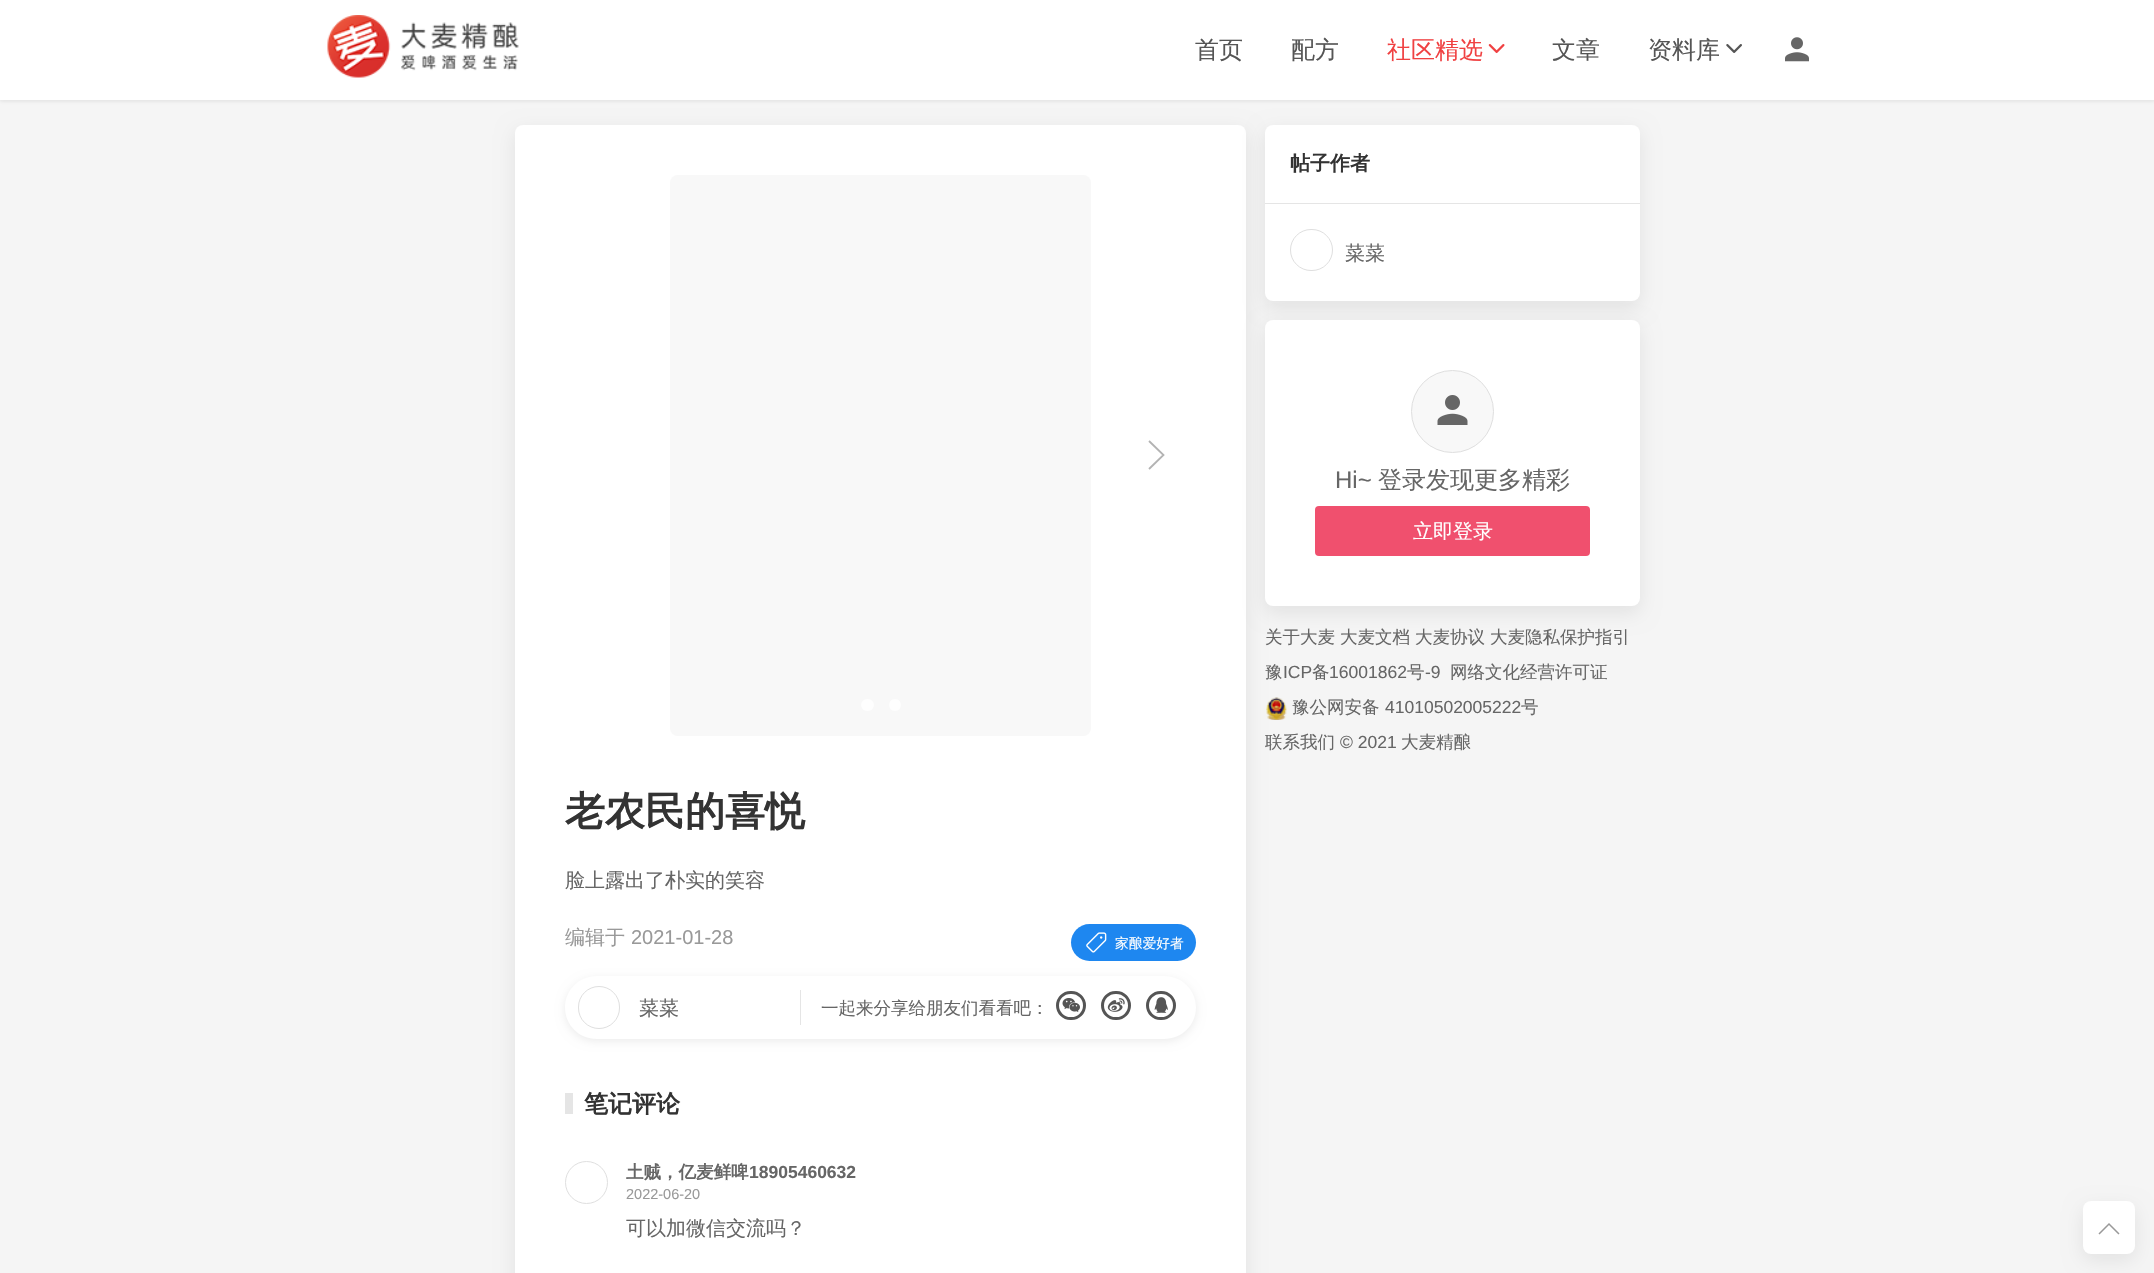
void draw(SkCanvas* c) {
SkPaint p;
p.setAntiAlias(true);
auto F=[&](const char* family, int weight, float size, bool italic = false){SkFontStyle style(weight, SkFontStyle::kNormal_Width,italic ? SkFontStyle::kItalic_Slant : SkFontStyle::kUpright_Slant);SkFont result(fontMgr->matchFamilyStyle(family, style), size);result.setSubpixel(true);return result;};
auto T=[&](const char* s, float x, float y, const SkFont& font){c->drawString(s, x, y, font, p);};
auto R=[&](float x, float y, float w, float h){c->drawRect(SkRect::MakeXYWH(x, y, w, h), p);};
auto Q=[&](float x, float y, float w, float h, float radius){c->drawRoundRect(SkRect::MakeXYWH(x, y, w, h), radius, radius, p);};
auto I=[&](const char* path, float x, float y, float w, float h){auto image = SkImages::DeferredFromEncodedData(SkData::MakeFromFileName(path));c->drawImageRect(image, SkRect::MakeXYWH(x, y, w, h), SkSamplingOptions());};
auto P=[&](const char* data, bool evenOdd = false){SkPath result = *SkParsePath::FromSVGString(data);if (evenOdd) result.setFillType(SkPathFillType::kEvenOdd);return result;};
c->clear(0xfff5f5f5);
p.setColor(0x1a121212);
p.setMaskFilter(SkMaskFilter::MakeBlur(kNormal_SkBlurStyle, 2));
c->drawRect(SkRect::MakeXYWH(0,1,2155,100),p);
p.setMaskFilter(nullptr);
p.setColor(0xffffffff);
R(0,0,2154,100);
I("1.png",327,15,192,63);
auto f1 = F("WenQuanYi Zen Hei",500,24);
p.setColor(0xff555555);
T("首页",1195,58,f1);
T("配方",1291,58,f1);
p.setColor(0xfff04142);
T("社区精选",1387,58,f1);
I("2.png",1488,44,17,10);
p.setColor(0xff555555);
T("文章",1552,58,f1);
T("资料库",1648,58,f1);
I("3.png",1726,44,16,9);
I("4.png",1785,37,24,25);
I("6.png",1266,697,21,23);
p.setColor(0x14000000);
p.setMaskFilter(SkMaskFilter::MakeBlur(kNormal_SkBlurStyle, 9.5));
c->drawRoundRect(SkRect::MakeXYWH(515,131,731,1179),8,8,p);
p.setMaskFilter(nullptr);
p.setColor(0xffffffff);
Q(515,125,731,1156,8);
p.setColor(0x14000000);
p.setMaskFilter(SkMaskFilter::MakeBlur(kNormal_SkBlurStyle, 9.5));
c->drawRoundRect(SkRect::MakeXYWH(1265,131,375,177),8,8,p);
p.setMaskFilter(nullptr);
p.setColor(0xffffffff);
Q(1265,125,375,176,8);
p.setColor(0xffe5e5e5);
R(1265,203,375,1);
auto f2 = F("WenQuanYi Zen Hei",700,20);
p.setColor(0xff333333);
T("帖子作者",1290,170,f2);
p.setStroke(true);
p.setStrokeWidth(1);
p.setColor(0xffdfdfdf);
c->drawRoundRect(SkRect::MakeXYWH(1290.5,229.5,42,41),20.5,20.5,p);
auto f3 = F("WenQuanYi Zen Hei",500,20);
p.setStroke(false);
p.setColor(0xff666666);
T("菜菜",1345,260,f3);
p.setColor(0x14000000);
p.setMaskFilter(SkMaskFilter::MakeBlur(kNormal_SkBlurStyle, 9.5));
c->drawRoundRect(SkRect::MakeXYWH(1265,326,375,287),8,8,p);
p.setMaskFilter(nullptr);
p.setColor(0xffffffff);
Q(1265,320,375,286,8);
p.setColor(0xfff8f8f8);
c->drawCircle(1452.5,411.5,41,p);
p.setStroke(true);
p.setColor(0xffdfdfdf);
c->drawCircle(1452.5,411.5,41,p);
I("5.png",1437,395,31,30);
auto f4 = F("Liberation Sans",400,24);
p.setStroke(false);
p.setColor(0xff666666);
T("Hi~",1335,488,f4);
T("登录发现更多精彩",1378,488,f1);
p.setColor(0xfff0506e);
Q(1315,506,275,50,4);
p.setColor(0xffffffff);
T("立即登录",1413,538,f3);
auto f5 = F("WenQuanYi Zen Hei",500,17.5);
p.setColor(0xff666666);
T("关于大麦",1265,643,f5);
T("大麦文档",1340,643,f5);
T("大麦协议",1415,643,f5);
T("大麦隐私保护指引",1490,643,f5);
T("豫",1265,678,f5);
auto f6 = F("Liberation Sans",400,17.5);
T("ICP",1283,678,f6);
T("备",1312,678,f5);
T("16001862",1329,678,f6);
T("号",1407,678,f5);
T("-9",1425,678,f6);
T("网络文化经营许可证",1450,678,f5);
T("豫公网安备",1292,713,f5);
T("41010502005222",1385,713,f6);
T("号",1521,713,f5);
T("联系我们",1265,748,f5);
T("© 2021",1340,748,f6);
T("大麦精酿",1401,748,f5);
p.setColor(0xfff8f8f8);
Q(670,175,421,561,8);
p.setStroke(true);
p.setStrokeWidth(1.8);
p.setColor(0xffb3b3b3);
c->drawPath(P("M1149 469l14.5-14l-14.5-14"),p);
p.setStroke(false);
p.setColor(0xfffefefe);
Q(861,699,13,12,6);
c->drawPath(P("M895 699c8 0 8 12 0 12c-8 0-8-12 0-12z"),p);
auto f7 = F("WenQuanYi Zen Hei",700,40);
p.setColor(0xff333333);
T("老农民的喜悦",565,825,f7);
p.setColor(0xff666666);
T("脸上露出了朴实的笑容",565,887,f3);
p.setColor(0xff999999);
T("编辑于",565,944,f3);
auto f8 = F("Liberation Sans",400,20);
T("2021-01-28",631,944,f8);
p.setColor(0xff1e87f0);
Q(1071,924,125,37,18.5);
I("7.png",1086,932,21,21);
auto f9 = F("WenQuanYi Zen Hei",500,13.75);
p.setColor(0xffffffff);
T("家酿爱好者",1115,948,f9);
c->save();
c->clipPath(P("M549 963h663v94h-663zm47.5 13h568c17.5 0 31.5 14 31.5 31.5c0 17.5-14 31.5-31.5 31.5h-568c-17.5 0-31.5-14-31.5-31.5c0-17.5 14-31.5 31.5-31.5z",true),true);
p.setColor(0x14000000);
p.setMaskFilter(SkMaskFilter::MakeBlur(kNormal_SkBlurStyle, 5));
c->drawRoundRect(SkRect::MakeXYWH(565,979,631,62),31,31,p);
p.setMaskFilter(nullptr);
c->restore();
p.setStroke(true);
p.setStrokeWidth(1);
p.setColor(0xffdfdfdf);
c->drawRoundRect(SkRect::MakeXYWH(578.5,986.5,41,42),20.5,20.5,p);
p.setStroke(false);
p.setColor(0xff666666);
T("菜菜",639,1015,f3);
p.setColor(0xffe5e5e5);
R(800,990,1,35);
p.setColor(0xff666666);
T("一起来分享给朋友们看看吧：",821,1014,f5);
p.setStroke(true);
p.setStrokeWidth(3);
p.setColor(0xff555555);
c->drawRoundRect(SkRect::MakeXYWH(1057.5,992.5,27,26),13,13,p);
I("8.png",1062,998,18,14);
c->drawRoundRect(SkRect::MakeXYWH(1102.5,992.5,27,26),13,13,p);
I("9.png",1107,998,18,14);
c->drawRoundRect(SkRect::MakeXYWH(1147.5,992.5,27,26),13,13,p);
I("10.png",1154,997,14,16);
p.setStroke(false);
p.setColor(0xffe5e5e5);
R(565,1093,8,21);
auto f10 = F("WenQuanYi Zen Hei",700,24);
p.setColor(0xff333333);
T("笔记评论",584,1112,f10);
p.setStroke(true);
p.setStrokeWidth(1);
p.setColor(0xffdfdfdf);
c->drawCircle(586.5,1182.5,21,p);
auto f11 = F("WenQuanYi Zen Hei",700,17.5);
p.setStroke(false);
p.setColor(0xff666666);
T("土贼，亿麦鲜啤",626,1178,f11);
auto f12 = F("Liberation Sans",700,17.5);
T("18905460632",749,1178,f12);
auto f13 = F("Liberation Sans",400,14.5);
p.setColor(0xff999999);
T("2022-06-20",626,1199,f13);
p.setColor(0xff666666);
T("可以加微信交流吗？",626,1235,f3);
p.setColor(0x14000000);
p.setMaskFilter(SkMaskFilter::MakeBlur(kNormal_SkBlurStyle, 9.5));
c->drawRoundRect(SkRect::MakeXYWH(2083,1208,52,52),8,8,p);
p.setMaskFilter(nullptr);
p.setColor(0xffffffff);
Q(2083,1201,52,53,8);
p.setStroke(true);
p.setStrokeWidth(1.5);
p.setColor(0xff999999);
c->drawPath(P("M2099 1234l10-10l10 10"),p);
}
